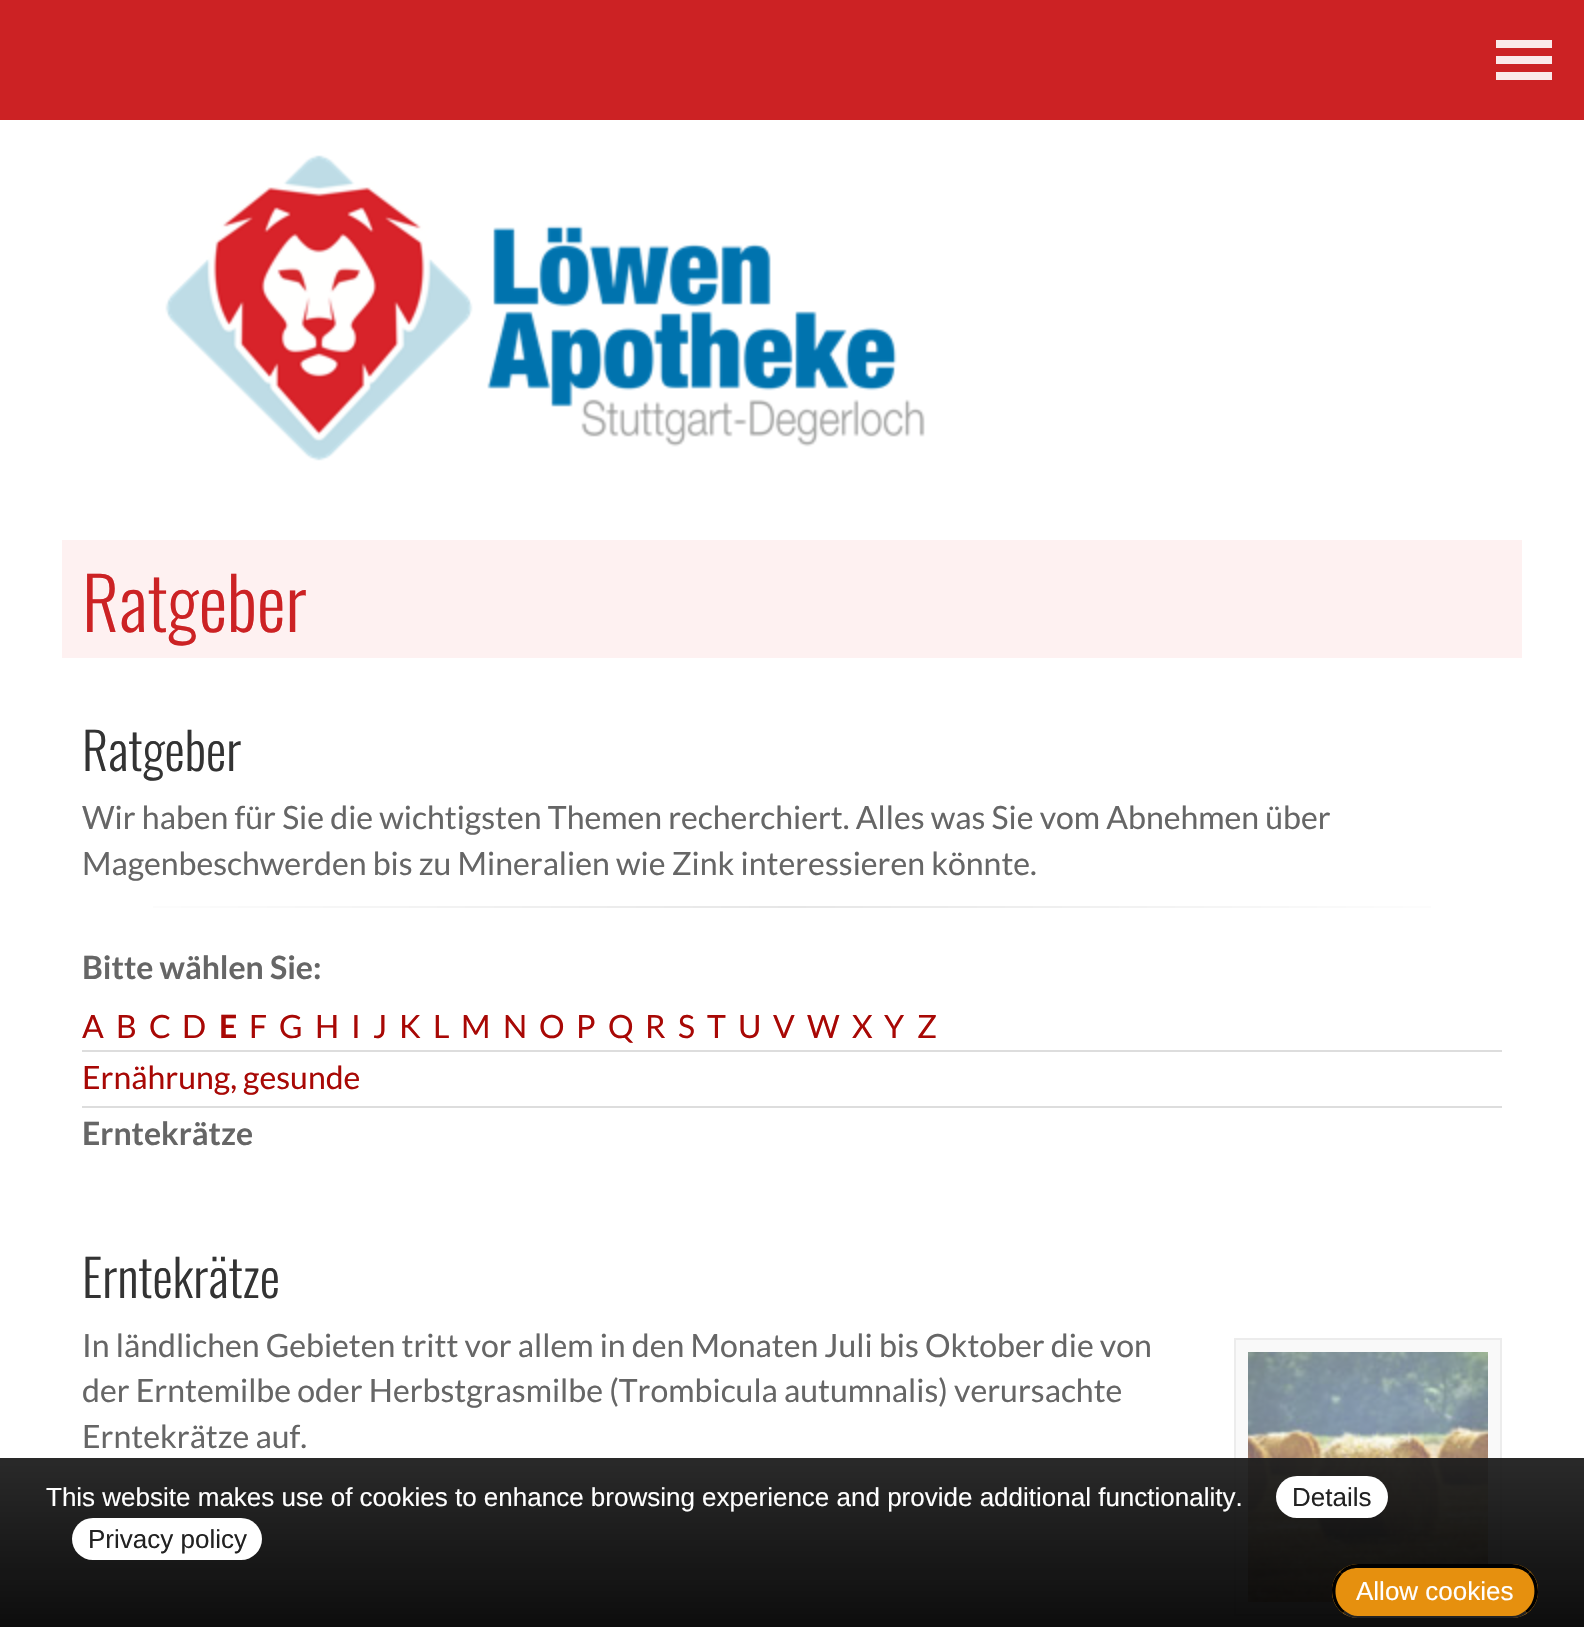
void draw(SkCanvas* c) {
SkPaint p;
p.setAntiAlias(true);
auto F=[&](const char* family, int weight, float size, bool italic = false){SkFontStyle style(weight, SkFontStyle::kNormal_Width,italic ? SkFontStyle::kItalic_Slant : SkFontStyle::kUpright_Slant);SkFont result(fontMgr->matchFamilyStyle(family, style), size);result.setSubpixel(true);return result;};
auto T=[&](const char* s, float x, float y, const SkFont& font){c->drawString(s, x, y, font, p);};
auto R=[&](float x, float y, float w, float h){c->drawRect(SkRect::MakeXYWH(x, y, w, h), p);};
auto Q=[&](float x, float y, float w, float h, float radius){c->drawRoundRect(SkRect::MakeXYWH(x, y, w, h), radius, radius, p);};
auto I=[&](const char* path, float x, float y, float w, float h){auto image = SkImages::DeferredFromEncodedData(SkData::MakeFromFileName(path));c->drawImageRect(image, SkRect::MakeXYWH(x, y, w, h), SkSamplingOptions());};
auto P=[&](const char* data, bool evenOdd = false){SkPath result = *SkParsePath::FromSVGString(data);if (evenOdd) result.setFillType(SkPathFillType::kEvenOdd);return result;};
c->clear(0xffffffff);
p.setColor(0xffcc2224);
R(0,0,1584,120);
p.setColor(0xfffae9e9);
R(1496,40,56,8);
R(1496,56,56,8);
R(1496,72,56,8);
I("1.png",165,155,760,306);
p.setColor(0xfffef1f1);
R(62,540,1460,118);
auto f1 = F("Oswald",300,72);
p.setColor(0xffcc2224);
T("Ratgeber",82,632,f1);
auto f2 = F("Oswald",300,51);
p.setColor(0xff333333);
T("Ratgeber",82,771,f2);
auto f3 = F("Lato",400,32);
p.setColor(0xff666666);
T("Wir haben für Sie die wichtigsten Themen recherchiert. Alles was Sie vom Abnehmen über",82,829,f3);
T("Magenbeschwerden bis zu Mineralien wie Zink interessieren könnte.",82,875,f3);
{
const SkColor colors[] = {0xffffffff,0xffe6e6e6,0xffffffff};
const float stops[] = {0,.5,1};
const SkPoint ends[] = {{82,907}, {1502,907}};
p.setShader(SkGradientShader::MakeLinear(ends, colors, stops, 3, SkTileMode::kClamp));
p.setAlpha(255);
}
R(153,906,1278,2);
auto f4 = F("Lato",700,32);
p.setShader(nullptr);
p.setColor(0xff666666);
T("Bitte wählen Sie:",82,979,f4);
p.setColor(0xffa80805);
T("A",82,1038,f3);
T("B",116,1038,f3);
T("C",149,1038,f3);
T("D",182,1038,f3);
T("E",219,1038,f4);
T("F",249,1038,f3);
T("G",279,1038,f3);
T("H",315,1038,f3);
T("I",351,1038,f3);
T("J",373,1038,f3);
T("K",399,1038,f3);
T("L",433,1038,f3);
T("M",461,1038,f3);
T("N",503,1038,f3);
T("O",539,1038,f3);
T("P",576,1038,f3);
T("Q",608,1038,f3);
T("R",645,1038,f3);
T("S",678,1038,f3);
T("T",707,1038,f3);
T("U",738,1038,f3);
T("V",773,1038,f3);
T("W",807,1038,f3);
T("X",852,1038,f3);
T("Y",884,1038,f3);
T("Z",917,1038,f3);
p.setColor(0xffdddddd);
R(82,1050,1420,2);
p.setColor(0xffa80805);
T("Ernährung, gesunde",82,1089,f3);
p.setColor(0xffdddddd);
R(82,1106,1420,2);
p.setColor(0xff666666);
T("Erntekrätze",82,1145,f4);
p.setColor(0xff333333);
T("Erntekrätze",82,1298,f2);
p.setColor(0xff666666);
T("In ländlichen Gebieten tritt vor allem in den Monaten Juli bis Oktober die von",82,1357,f3);
T("der Erntemilbe oder Herbstgrasmilbe (Trombicula autumnalis) verursachte",82,1402,f3);
T("Erntekrätze auf.",82,1448,f3);
p.setColor(0xfff9f9f9);
c->drawRect(SkRect::MakeXYWH(1235,1339,266,276),p);
p.setStroke(true);
p.setStrokeWidth(2);
p.setColor(0xffececec);
c->drawRect(SkRect::MakeXYWH(1235,1339,266,276),p);
I("2.png",1248,1352,240,250);
p.setStroke(false);
{
const SkColor colors[] = {0xf21e1e1e,0xf2000000};
const float stops[] = {0,1};
const SkPoint ends[] = {{792,1458}, {792,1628}};
p.setShader(SkGradientShader::MakeLinear(ends, colors, stops, 2, SkTileMode::kClamp));
p.setAlpha(255);
}
R(0,1458,1584,169);
auto f5 = F("Liberation Sans",400,26);
p.setShader(nullptr);
p.setColor(0xffffffff);
T("This website makes use of cookies to enhance browsing experience and provide additional functionality.",46,1506,f5);
Q(1276,1476,112,42,21);
p.setColor(0xff222222);
T("Details",1292,1506,f5);
p.setColor(0xffffffff);
Q(72,1518,190,42,21);
p.setColor(0xff222222);
T("Privacy policy",88,1548,f5);
p.setColor(0xffe6900e);
Q(1332,1564,206,54,26);
p.setColor(0xff000000);
c->drawPath(P("M1358 1564c-7 0-14 3-18 8l2 2c4-4 10-6 16-6h154c6 0 12 2 16 6l2-2c-4-5-11-8-18-8z"),p);
c->drawPath(P("M1538 1592c0-8-2-15-8-20l-2 2c10 11 8 29-3 37l2 2c7-5 11-13 11-21z"),p);
p.setColor(0xff222222);
c->drawPath(P("M1358 1618h154c6 0 11-2 15-5l-2-2c-4 3-8 5-13 5h-154c-5 0-9-2-13-5l-2 2c4 3 9 5 15 5z"),p);
p.setColor(0xff000000);
c->drawPath(P("M1332 1590c0 9 3 17 11 23l2-2c-11-8-13-26-3-37l-2-2c-5 4-8 11-8 18z"),p);
p.setColor(0xffffffff);
T("Allow cookies",1356,1600,f5);
}
